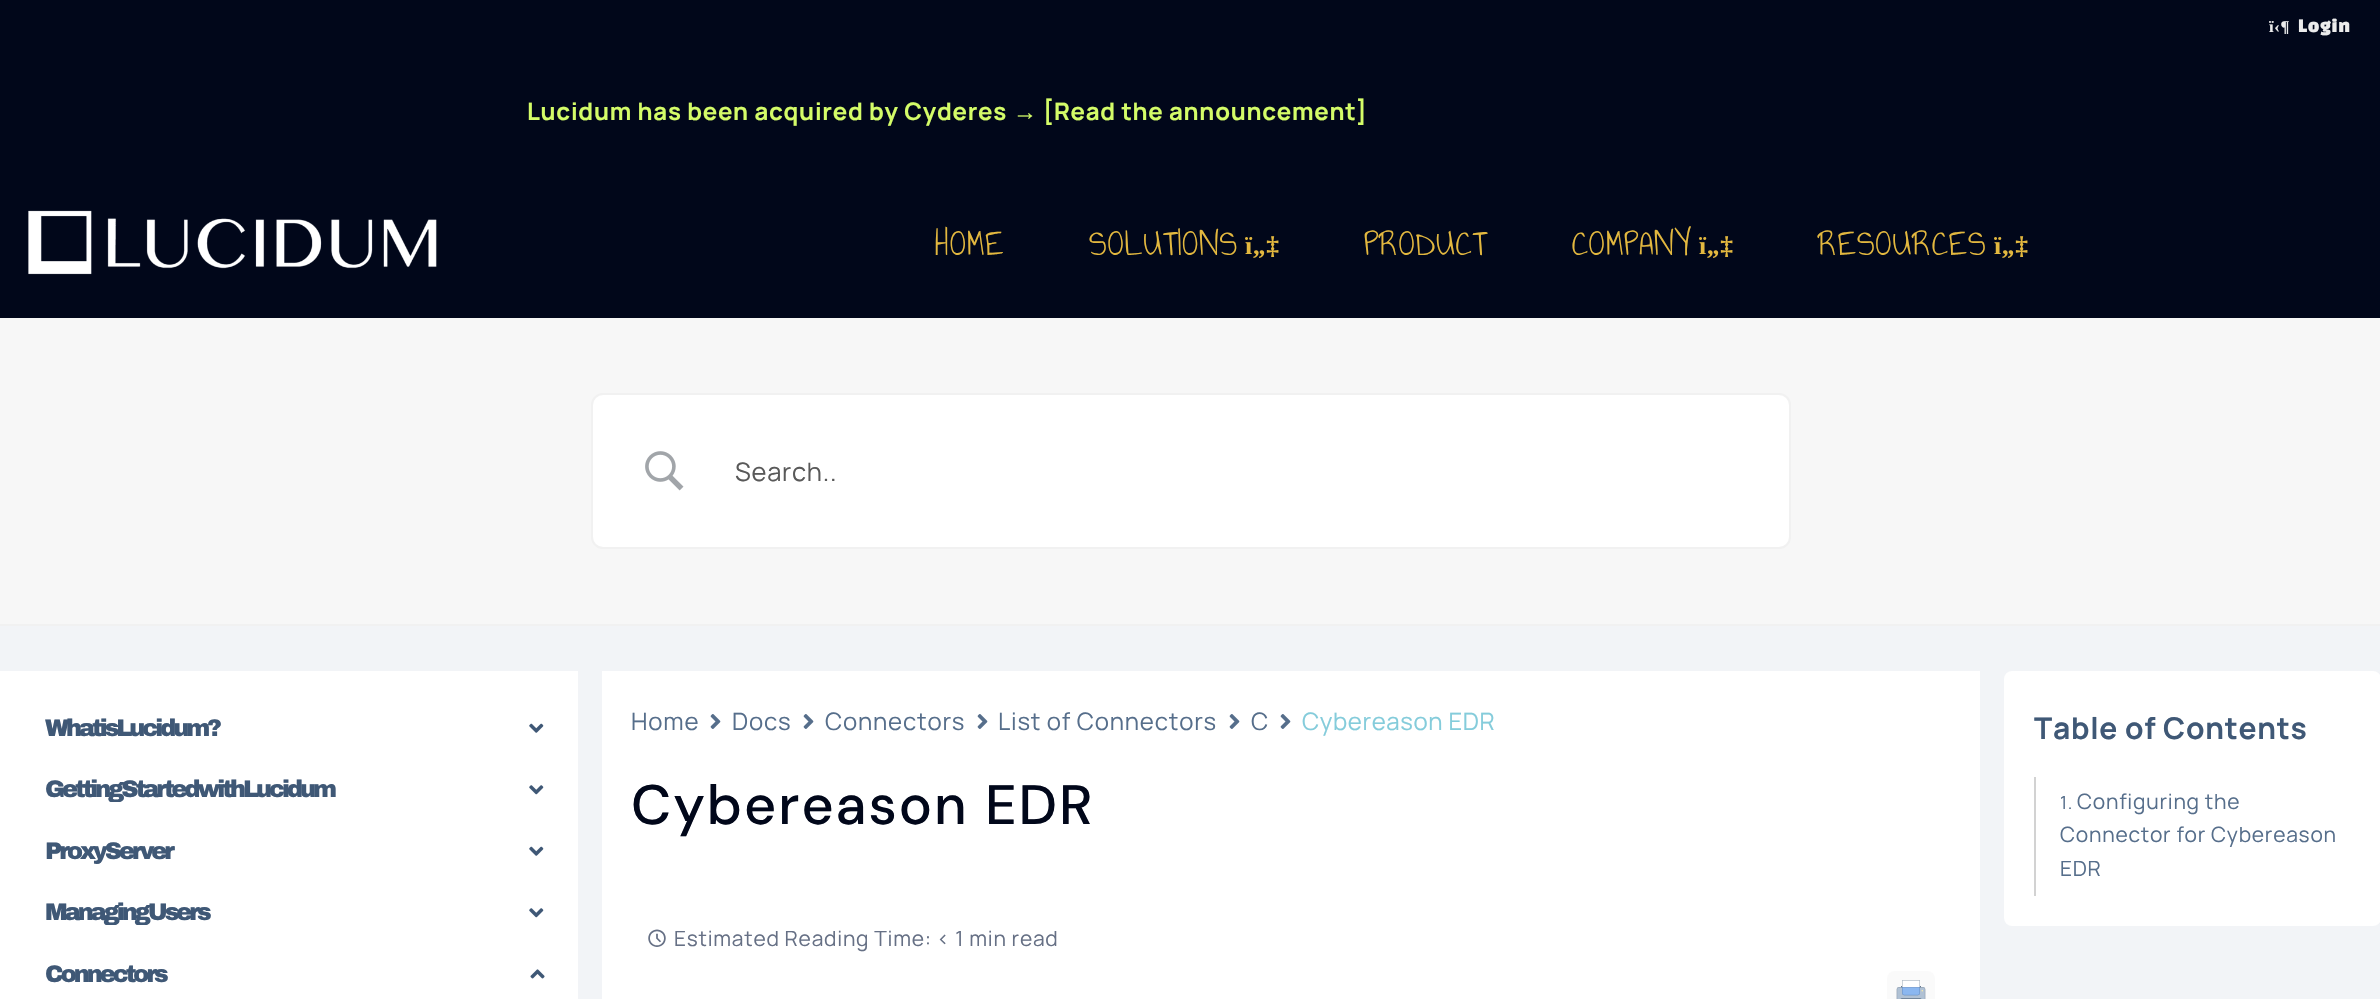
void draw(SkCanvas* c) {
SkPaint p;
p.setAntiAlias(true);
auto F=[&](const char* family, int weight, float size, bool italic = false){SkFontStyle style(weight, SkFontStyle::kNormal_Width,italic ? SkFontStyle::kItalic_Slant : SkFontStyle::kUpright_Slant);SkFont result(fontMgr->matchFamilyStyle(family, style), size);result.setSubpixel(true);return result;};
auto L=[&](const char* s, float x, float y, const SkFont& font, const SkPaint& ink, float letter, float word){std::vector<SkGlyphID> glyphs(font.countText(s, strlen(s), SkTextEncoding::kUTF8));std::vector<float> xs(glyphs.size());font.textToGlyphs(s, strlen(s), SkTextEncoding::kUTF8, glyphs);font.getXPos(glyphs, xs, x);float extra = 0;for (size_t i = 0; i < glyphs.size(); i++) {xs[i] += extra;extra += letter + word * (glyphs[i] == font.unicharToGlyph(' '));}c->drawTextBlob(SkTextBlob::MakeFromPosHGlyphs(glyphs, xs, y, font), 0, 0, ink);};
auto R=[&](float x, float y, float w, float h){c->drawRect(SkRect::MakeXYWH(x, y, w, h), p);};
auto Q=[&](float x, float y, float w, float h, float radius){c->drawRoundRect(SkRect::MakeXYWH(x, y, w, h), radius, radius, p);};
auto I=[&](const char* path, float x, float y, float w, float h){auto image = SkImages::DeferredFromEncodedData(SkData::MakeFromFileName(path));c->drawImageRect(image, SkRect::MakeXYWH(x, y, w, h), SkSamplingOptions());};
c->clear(0xff01071a);
auto f1 = F("Liberation Serif",700,16.5);
p.setColor(0xffececec);
L("ï‹¶",2269,32,f1,p,.75,0);
auto f2 = F("Black Han Sans",900,16.5);
L("Login",2298,32,f2,p,.75,0);
auto f3 = F("Manrope",700,24);
p.setColor(0xffd4fc68);
L("Lucidum has been acquired by Cyderes",527,120,f3,p,.75,0);
auto f4 = F("Liberation Sans",700,24);
L("→",1013,120,f4,p,.75,0);
L("[Read the announcement]",1043,120,f3,p,.75,0);
I("1.png",28,210,409,65);
auto f5 = F("Annie Use Your Telescope",400,37.5);
p.setColor(0xffe3b83f);
L("HOME",935,255,f5,p,.75,0);
L("SOLUTIONS",1089,255,f5,p,.75,0);
auto f6 = F("Liberation Serif",700,25.5);
L("ï„‡",1245,254,f6,p,.75,0);
L("PRODUCT",1364,255,f5,p,.75,0);
L("COMPANY",1572,255,f5,p,.75,0);
L("ï„‡",1699,254,f6,p,.75,0);
L("RESOURCES",1818,255,f5,p,.75,0);
L("ï„‡",1994,254,f6,p,.75,0);
p.setColor(0xfff2f4f7);
R(0,626,2380,373);
p.setColor(0xfff7f7f7);
R(0,318,2380,306);
p.setColor(0xfff1f1f1);
R(0,624,2380,2);
p.setColor(0xffffffff);
c->drawRoundRect(SkRect::MakeXYWH(592,394,1198,154),11,11,p);
p.setStroke(true);
p.setStrokeWidth(2);
p.setColor(0xfff1f1f1);
c->drawRoundRect(SkRect::MakeXYWH(592,394,1198,154),11,11,p);
I("2.png",645,451,39,40);
auto f7 = F("Manrope",400,25.5);
p.setStroke(false);
p.setColor(0xff595959);
L("Search..",735,481,f7,p,.75,0);
p.setColor(0xffffffff);
R(0,671,578,328);
auto f8 = F("Archivo Black",900,24);
p.setColor(0xff3f5876);
L("What is Lucidum?",45,736,f8,p,-3,-5);
I("3.png",529,723,15,10);
L("Getting Started with Lucidum",45,797,f8,p,-3,-5);
I("4.png",529,785,15,10);
L("Proxy Server",45,859,f8,p,-3,-5);
I("3.png",529,846,15,10);
L("Managing Users",45,920,f8,p,-3,-5);
I("4.png",529,908,15,10);
L("Connectors",45,982,f8,p,-3,0);
I("5.png",530,969,15,10);
p.setColor(0xffffffff);
R(602,671,1378,328);
auto f9 = F("Manrope",400,24);
p.setColor(0xff566e8b);
L("Home",631,730,f9,p,.8,0);
I("6.png",710,714,11,15);
L("Docs",732,730,f9,p,.8,0);
I("6.png",803,714,11,15);
L("Connectors",825,730,f9,p,.8,0);
I("6.png",977,714,11,15);
L("List of Connectors",998,730,f9,p,.8,0);
I("6.png",1229,714,11,15);
L("C",1251,730,f9,p,.8,0);
I("6.png",1280,714,11,15);
p.setColor(0xff84ccdb);
L("Cybereason EDR",1302,730,f9,p,.6,0);
auto f10 = F("DM Sans",500,55.5);
p.setColor(0xff01071a);
L("Cybereason EDR",631,824,f10,p,2,0);
I("7.png",648,929,18,18);
auto f11 = F("Manrope",400,21);
p.setColor(0xff667085);
L("Estimated Reading Time: < 1 min read",674,946,f11,p,.75,0);
p.setColor(0xfffafafa);
Q(1887,971,48,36,8);
I("8.png",1896,980,30,19);
p.setColor(0xffffffff);
Q(2004,671,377,255,8);
auto f12 = F("Manrope",700,30);
p.setColor(0xff3f5876);
L("Table of Contents",2034,739,f12,p,.75,0);
p.setColor(0xffd2d2d2);
R(2034,777,2,119);
auto f13 = F("Manrope",400,18);
p.setColor(0xff566e8b);
L("1.",2060,809,f13,p,.75,0);
L("Configuring the",2077,809,f11,p,.75,0);
L("Connector for Cybereason",2060,842,f11,p,.75,0);
L("EDR",2060,876,f11,p,.75,0);
}
